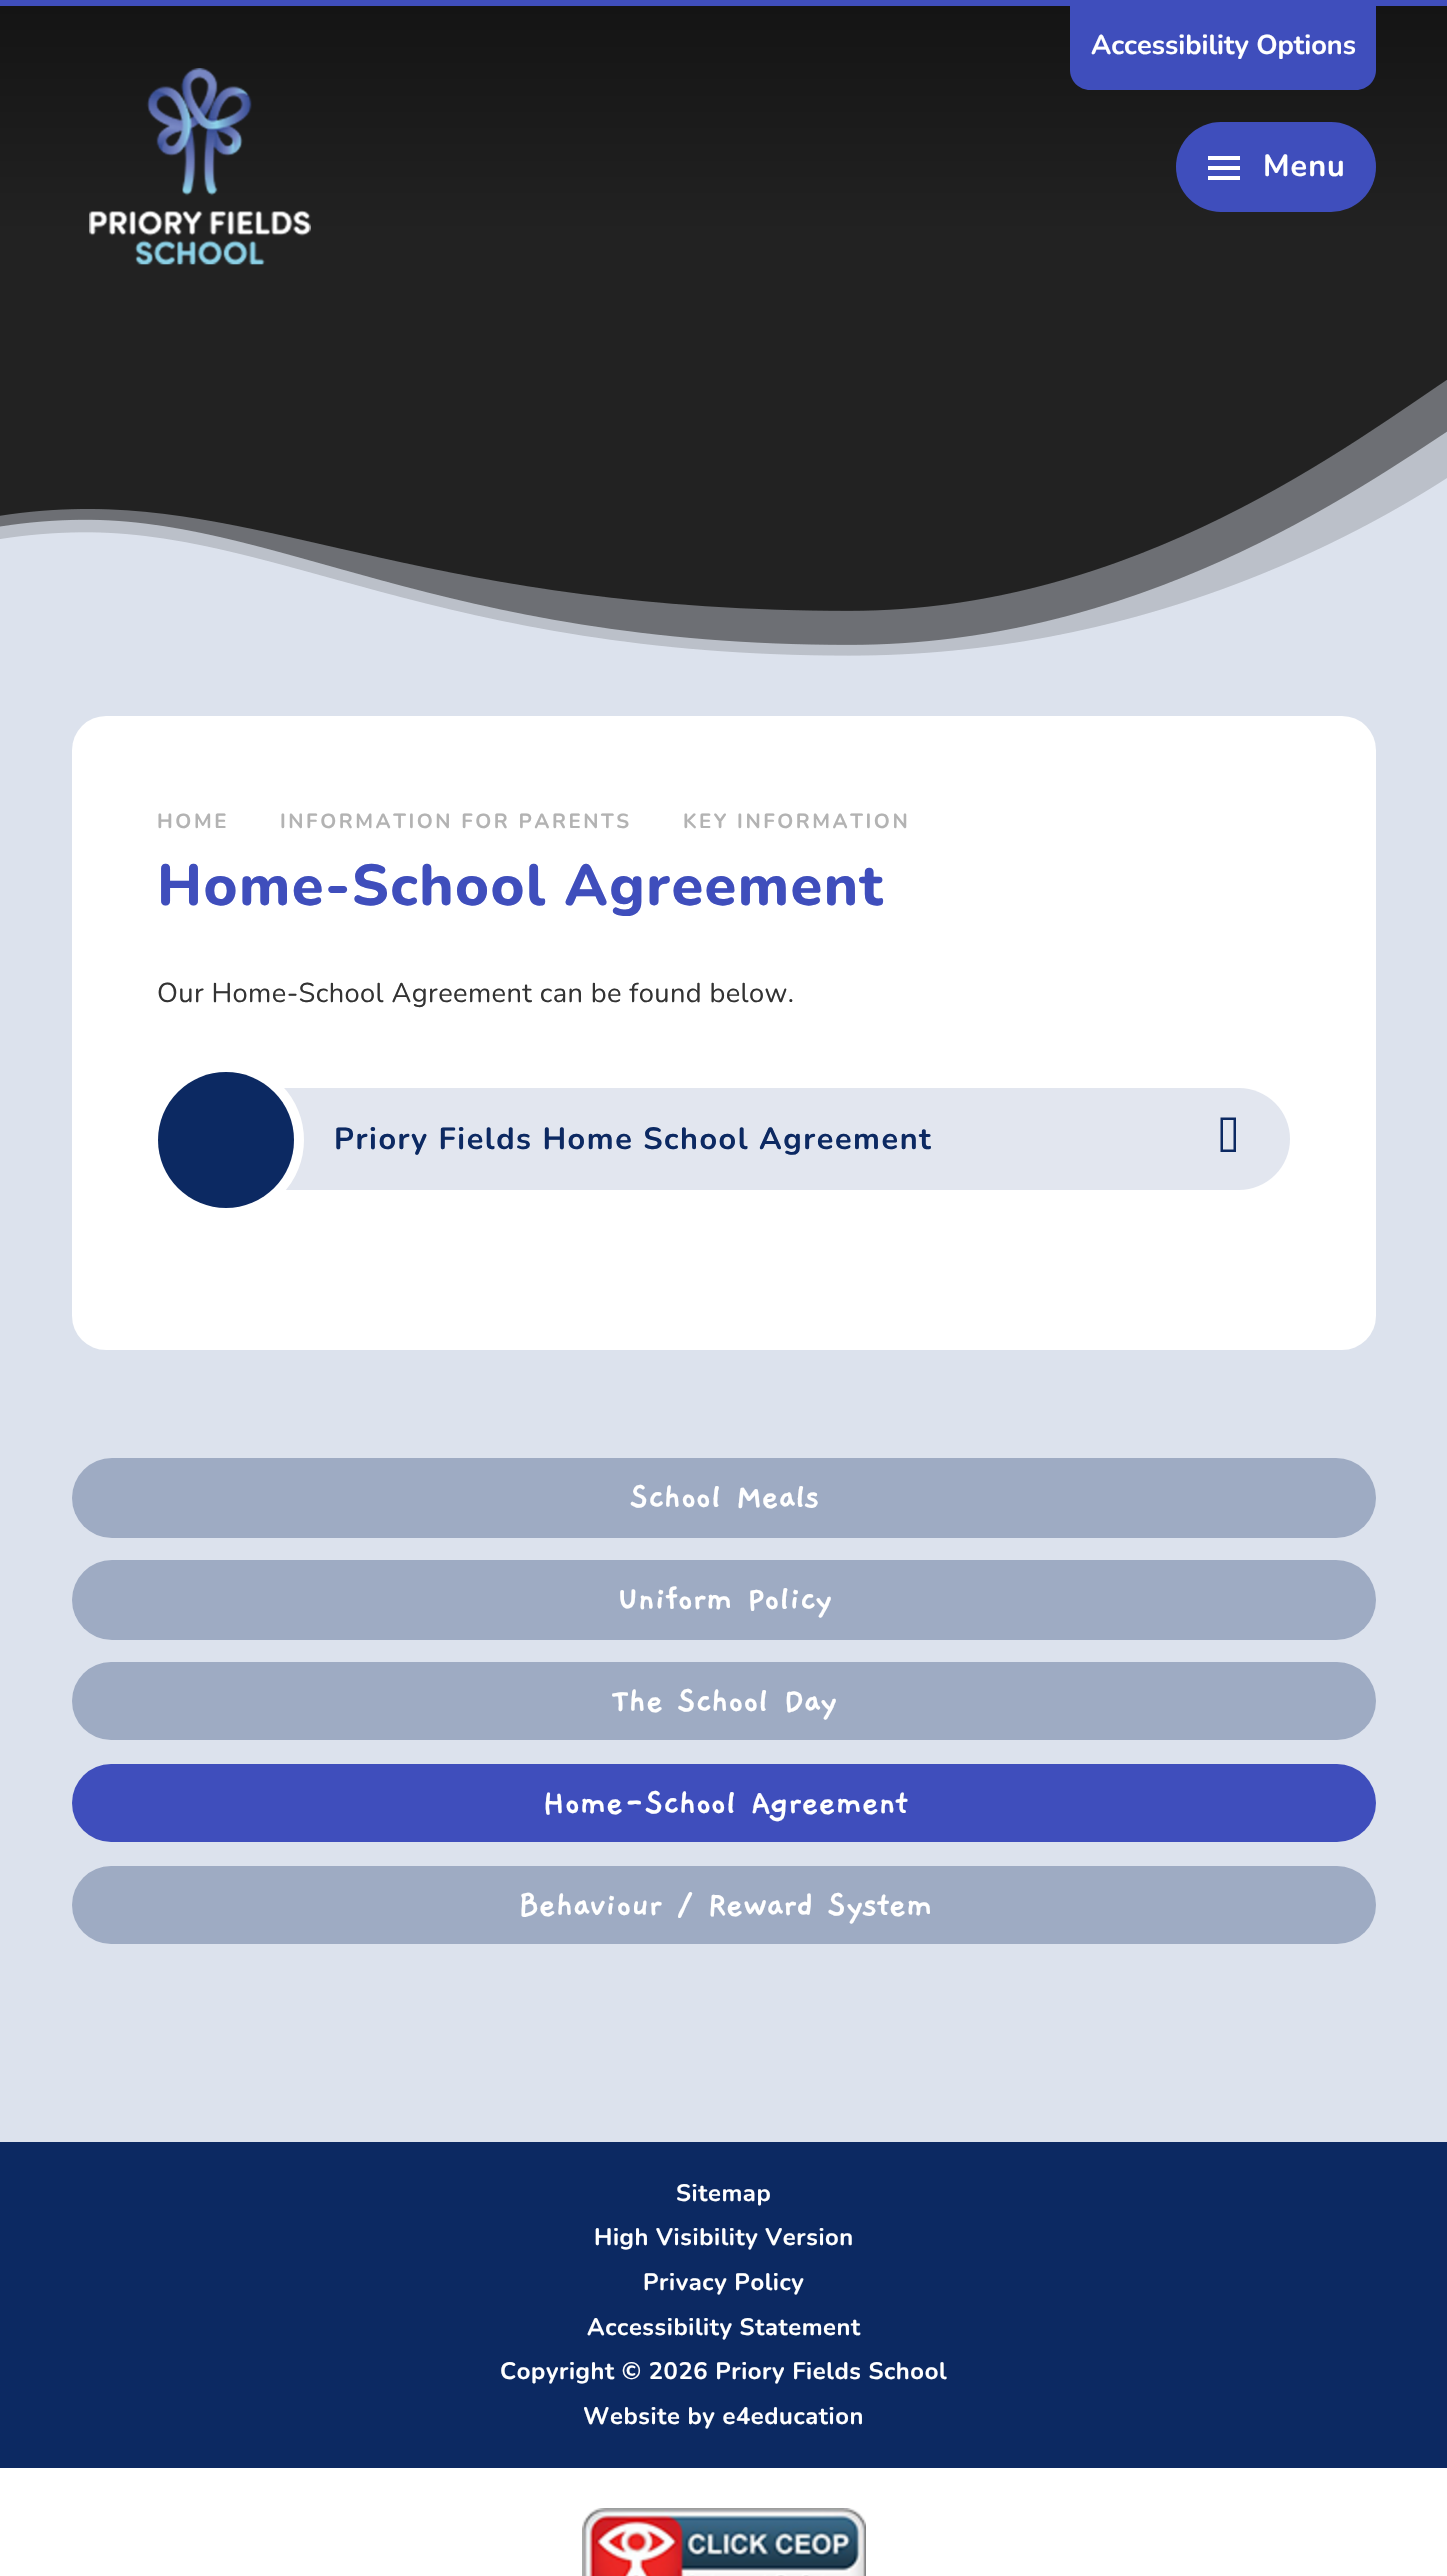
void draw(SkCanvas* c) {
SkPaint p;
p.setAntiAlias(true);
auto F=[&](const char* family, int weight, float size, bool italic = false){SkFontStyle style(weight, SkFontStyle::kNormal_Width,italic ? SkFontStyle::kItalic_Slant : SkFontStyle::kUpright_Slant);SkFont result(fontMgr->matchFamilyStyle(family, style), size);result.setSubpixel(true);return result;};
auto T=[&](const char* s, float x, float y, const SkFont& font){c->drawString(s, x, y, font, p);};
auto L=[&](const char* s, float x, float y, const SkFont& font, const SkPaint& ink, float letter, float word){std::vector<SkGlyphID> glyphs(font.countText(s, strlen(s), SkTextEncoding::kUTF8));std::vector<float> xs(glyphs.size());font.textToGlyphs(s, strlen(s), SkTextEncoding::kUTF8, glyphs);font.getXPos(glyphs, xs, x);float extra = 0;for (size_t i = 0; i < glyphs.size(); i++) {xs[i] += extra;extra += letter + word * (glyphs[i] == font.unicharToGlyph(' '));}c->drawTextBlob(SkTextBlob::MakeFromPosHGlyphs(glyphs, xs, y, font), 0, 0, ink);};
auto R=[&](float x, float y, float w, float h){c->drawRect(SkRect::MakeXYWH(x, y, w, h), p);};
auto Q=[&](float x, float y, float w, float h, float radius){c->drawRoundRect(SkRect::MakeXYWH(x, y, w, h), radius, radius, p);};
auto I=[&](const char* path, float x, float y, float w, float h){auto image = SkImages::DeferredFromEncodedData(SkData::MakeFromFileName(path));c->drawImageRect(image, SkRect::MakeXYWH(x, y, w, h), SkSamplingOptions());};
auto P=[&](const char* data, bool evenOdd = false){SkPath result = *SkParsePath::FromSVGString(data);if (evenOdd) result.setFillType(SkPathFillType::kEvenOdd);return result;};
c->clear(0xffffffff);
p.setColor(0xff3f4ebc);
R(0,0,1447,6);
p.setColor(0xff222222);
R(0,234,1447,422);
{
const SkColor colors[] = {0xff141414,0xff222222};
const float stops[] = {0,1};
const SkPoint ends[] = {{724,6}, {724,234}};
p.setShader(SkGradientShader::MakeLinear(ends, colors, stops, 2, SkTileMode::kClamp));
p.setAlpha(255);
}
R(0,6,1447,228);
p.setShader(nullptr);
p.setColor(0xff3f4ebc);
c->drawPath(P("M1070 0h306v70c0 11-9 20-20 20h-266c-11 0-20-9-20-20z"),p);
auto f1 = F("Nunito",700,27.2);
p.setColor(0xffffffff);
T("Accessibility Options",1091,54,f1);
I("1.png",89,68,222,197);
p.setColor(0xff3f4ebc);
Q(1176,122,200,90,45);
p.setColor(0xffffffff);
R(1208,156,32,4);
R(1208,176,32,4);
R(1208,166,32,4);
auto f2 = F("Nunito",700,30.6);
L("Menu",1263,176,f2,p,1,0);
p.setColor(0xffdce2ed);
R(0,658,1447,1484);
I("2.png",0,380,1447,278);
p.setColor(0xffffffff);
Q(72,716,1304,634,34);
auto f3 = F("Nunito",700,20.4);
p.setColor(0xffb3b3b3);
L("HOME",157,828,f3,p,2.55,0);
L("INFORMATION FOR PARENTS",280,828,f3,p,2.55,0);
L("KEY INFORMATION",683,828,f3,p,2.55,0);
auto f4 = F("Nunito",800,57.75);
p.setColor(0xff3f4ebc);
L("Home-School Agreement",157,905,f4,p,1.45,0);
auto f5 = F("Nunito",400,27.2);
p.setColor(0xff333333);
L("Our Home-School Agreement can be found below.",157,1002,f5,p,.4,0);
p.setColor(0xffe2e6ef);
Q(198,1088,1092,102,51);
c->save();
c->clipRect(SkRect::MakeXYWH(144,1068,1160,170));
p.setStroke(true);
p.setStrokeWidth(10);
p.setColor(0xffffffff);
c->drawCircle(226,1140,73,p);
c->restore();
p.setStroke(false);
p.setColor(0xff0c2962);
c->drawCircle(226,1140,68,p);
L("Priory Fields Home School Agreement",334,1149,f2,p,1.55,0);
c->drawPath(P("M1223 1149.5v-29.5h10.5v29.5zm-2.5 2.5h15.5v-34.5h-15.5z"),p);
p.setColor(0xff9eabc3);
Q(72,1458,1304,80,40);
auto f6 = F("Gaegu",700,37.4);
p.setColor(0xffffffff);
L("School Meals",630,1507,f6,p,-.9,0);
p.setColor(0xff9eabc3);
Q(72,1560,1304,80,40);
p.setColor(0xffffffff);
L("Uniform Policy",617,1609,f6,p,-.9,0);
p.setColor(0xff9eabc3);
Q(72,1662,1304,78,39);
p.setColor(0xffffffff);
L("The School Day",611,1711,f6,p,-.9,0);
p.setColor(0xff3f4ebc);
Q(72,1764,1304,78,39);
p.setColor(0xffffffff);
L("Home-School Agreement",542,1813,f6,p,-.9,0);
p.setColor(0xff9eabc3);
Q(72,1866,1304,78,39);
p.setColor(0xffffffff);
L("Behaviour / Reward System",518,1915,f6,p,-.9,0);
p.setColor(0xff0c2962);
R(0,2142,1447,326);
auto f7 = F("Nunito",700,23.75);
p.setColor(0xffffffff);
L("Sitemap",676,2201,f7,p,.6,0);
L("High Visibility Version",594,2245,f7,p,.6,0);
L("Privacy Policy",643,2290,f7,p,.6,0);
L("Accessibility Statement",587,2335,f7,p,.6,0);
L("Copyright © 2026 Priory Fields School",500,2379,f7,p,.6,0);
L("Website by e4education",583,2424,f7,p,.6,0);
I("3.png",582,2508,284,68);
}
